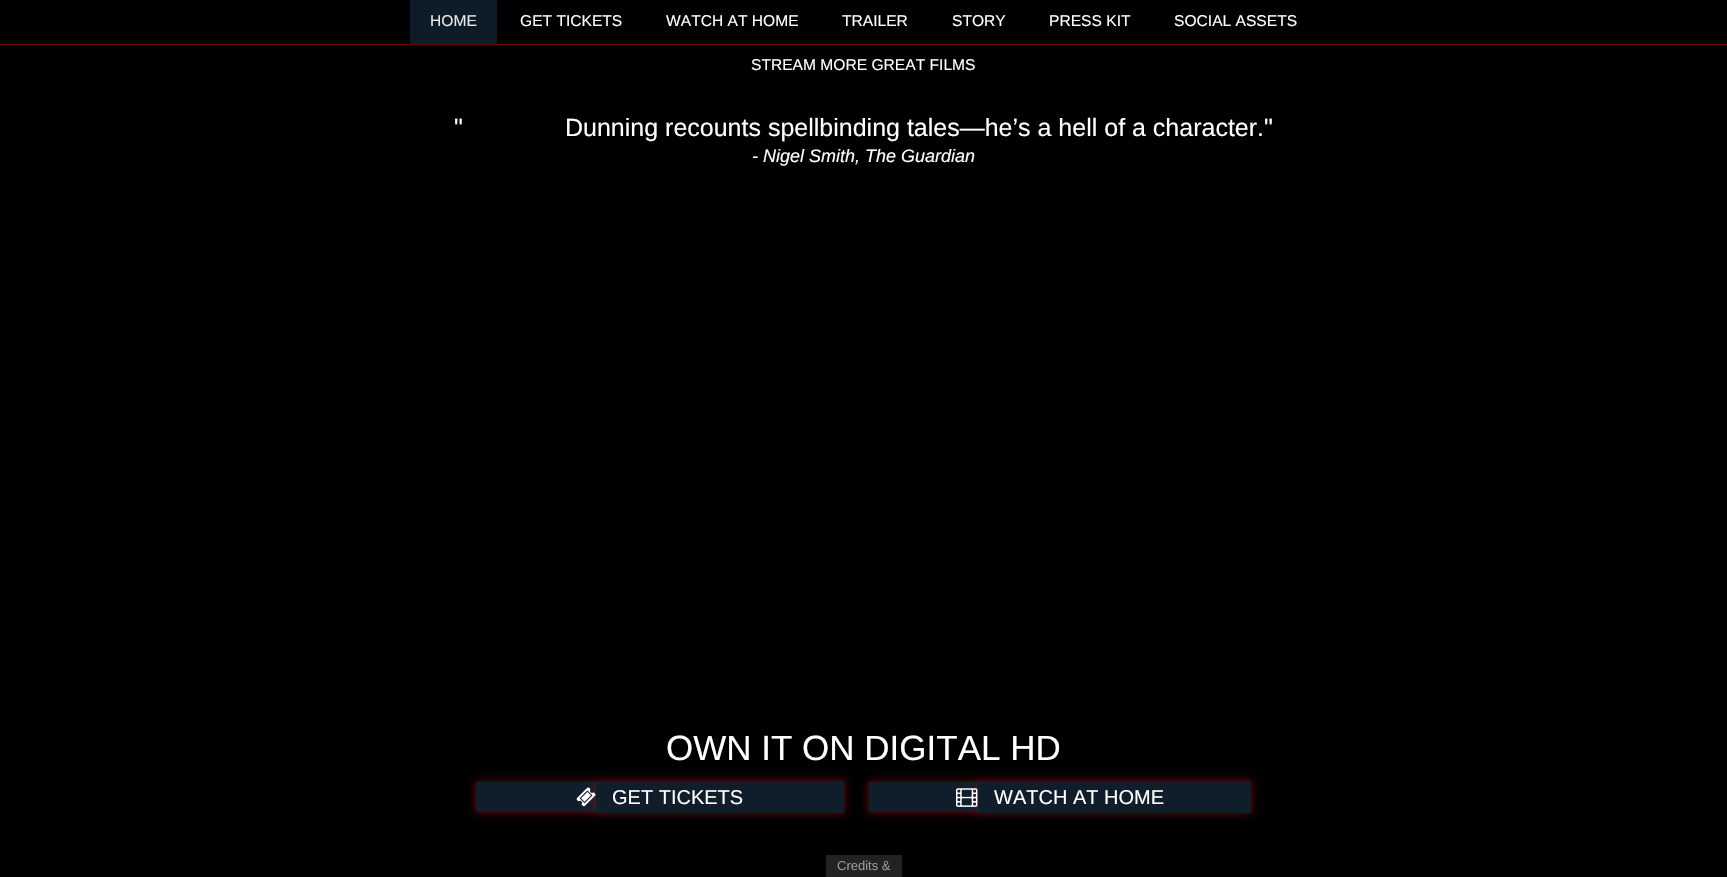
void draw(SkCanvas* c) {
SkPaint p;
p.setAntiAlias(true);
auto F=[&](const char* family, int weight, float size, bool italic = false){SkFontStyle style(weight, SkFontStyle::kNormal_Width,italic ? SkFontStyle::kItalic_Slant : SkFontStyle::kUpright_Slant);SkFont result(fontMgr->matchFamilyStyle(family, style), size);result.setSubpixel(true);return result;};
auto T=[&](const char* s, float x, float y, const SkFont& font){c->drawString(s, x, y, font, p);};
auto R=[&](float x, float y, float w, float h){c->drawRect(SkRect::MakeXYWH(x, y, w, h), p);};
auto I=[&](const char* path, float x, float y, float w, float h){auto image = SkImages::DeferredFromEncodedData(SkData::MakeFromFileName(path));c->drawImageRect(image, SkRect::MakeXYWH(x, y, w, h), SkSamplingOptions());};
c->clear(0xff000000);
p.setColor(0xff650508);
R(0,44,1727,1);
p.setColor(0xff0e1b28);
R(410,0,87,44);
auto f1 = F("Liberation Sans",400,15.6);
p.setColor(0xffe6e6e6);
T("HOME",430,26,f1);
p.setColor(0xffffffff);
T("GET TICKETS",520,26,f1);
T("WATCH AT HOME",666,26,f1);
T("TRAILER",842,26,f1);
T("STORY",952,26,f1);
T("PRESS KIT",1049,26,f1);
T("SOCIAL ASSETS",1174,26,f1);
T("STREAM MORE GREAT FILMS",751,70,f1);
auto f2 = F("Liberation Sans",400,25);
T("\"",454,136,f2);
T("Dunning recounts spellbinding tales—he’s a hell of a character.\"",565,136,f2);
auto f3 = F("Liberation Sans",400,18,true);
T("- Nigel Smith, The Guardian",752,162,f3);
auto f4 = F("Liberation Sans",400,35);
T("OWN IT ON DIGITAL HD",666,760,f4);
p.setColor(0x99c90a10);
p.setMaskFilter(SkMaskFilter::MakeBlur(kNormal_SkBlurStyle, 4));
c->drawRect(SkRect::MakeXYWH(476,782,120,30),p);
p.setMaskFilter(nullptr);
p.setColor(0xff101d2b);
R(476,782,120,30);
p.setColor(0x99c90a10);
p.setMaskFilter(SkMaskFilter::MakeBlur(kNormal_SkBlurStyle, 4));
c->drawRect(SkRect::MakeXYWH(596,781,248,32),p);
p.setMaskFilter(nullptr);
p.setColor(0xff101d2b);
R(596,781,248,32);
I("1.png",576,787,20,20);
auto f5 = F("Liberation Sans",400,20);
p.setColor(0xffffffff);
T("GET TICKETS",612,804,f5);
p.setColor(0x99c90a10);
p.setMaskFilter(SkMaskFilter::MakeBlur(kNormal_SkBlurStyle, 4));
c->drawRect(SkRect::MakeXYWH(869,782,109,30),p);
p.setMaskFilter(nullptr);
p.setColor(0xff101d2b);
R(869,782,109,30);
p.setColor(0x99c90a10);
p.setMaskFilter(SkMaskFilter::MakeBlur(kNormal_SkBlurStyle, 4));
c->drawRect(SkRect::MakeXYWH(978,781,273,32),p);
p.setMaskFilter(nullptr);
p.setColor(0xff101d2b);
R(978,781,273,32);
I("2.png",956,788,22,19);
p.setColor(0xffffffff);
T("WATCH AT HOME",994,804,f5);
p.setColor(0xff222222);
R(826,855,76,22);
auto f6 = F("Liberation Sans",400,13);
p.setColor(0xff999999);
T("Credits &",837,870,f6);
}
